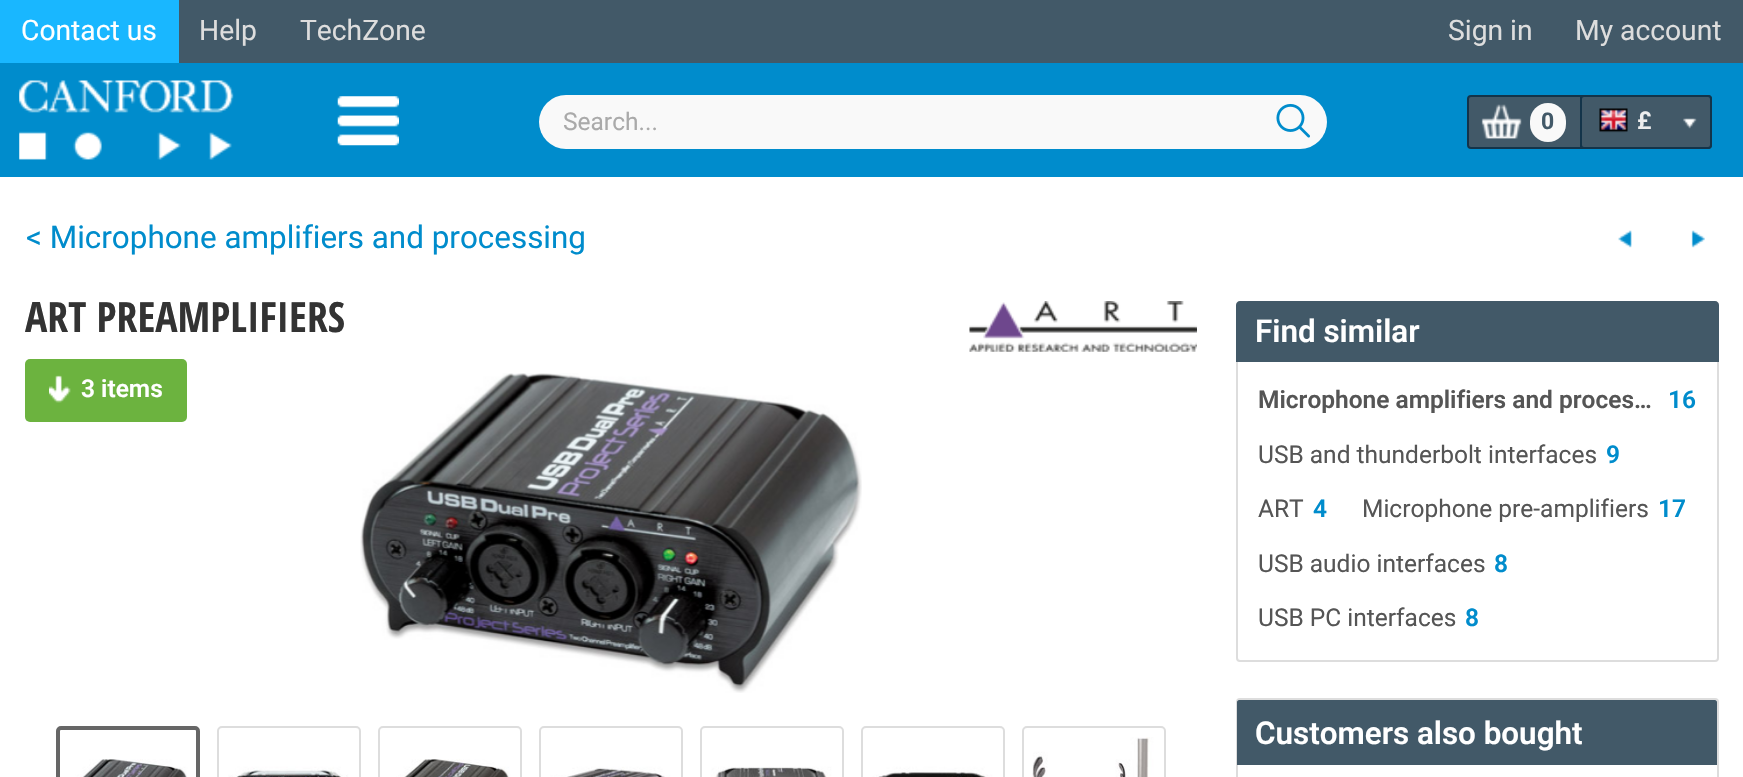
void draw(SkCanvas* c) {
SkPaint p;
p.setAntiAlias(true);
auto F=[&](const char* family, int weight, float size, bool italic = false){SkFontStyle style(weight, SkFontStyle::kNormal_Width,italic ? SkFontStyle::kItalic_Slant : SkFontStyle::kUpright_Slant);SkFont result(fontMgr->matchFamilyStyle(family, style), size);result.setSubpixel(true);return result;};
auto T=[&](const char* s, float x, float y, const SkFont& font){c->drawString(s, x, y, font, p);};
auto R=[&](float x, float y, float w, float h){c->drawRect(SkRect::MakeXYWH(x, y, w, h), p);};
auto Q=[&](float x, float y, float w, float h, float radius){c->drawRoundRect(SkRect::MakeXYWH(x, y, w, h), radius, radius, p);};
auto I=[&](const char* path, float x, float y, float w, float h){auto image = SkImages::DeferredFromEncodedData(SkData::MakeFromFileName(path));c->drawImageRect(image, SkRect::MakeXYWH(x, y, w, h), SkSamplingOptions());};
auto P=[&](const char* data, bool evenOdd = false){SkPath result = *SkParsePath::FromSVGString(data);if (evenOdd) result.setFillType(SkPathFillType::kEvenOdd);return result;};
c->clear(0xffffffff);
p.setColor(0xff425968);
R(179,0,1564,63);
p.setColor(0xff19b7ff);
R(0,0,179,63);
auto f1 = F("Roboto",400,28.25);
p.setColor(0xffffffff);
T("Contact us",21,40,f1);
p.setColor(0xffdddddd);
T("Help",199,40,f1);
T("TechZone",300,40,f1);
T("Sign in",1448,40,f1);
T("My account",1575,40,f1);
p.setColor(0xff008ccc);
R(0,63,1743,114);
I("1.png",19,80,215,80);
I("2.png",337,96,62,50);
p.setColor(0xfff9f9f9);
Q(539,95,788,54,27);
auto f2 = F("Roboto",400,24.5);
p.setColor(0xffaaaaaa);
T("Search...",563,130,f2);
I("3.png",1276,103,34,35);
p.setColor(0xff425968);
c->drawRoundRect(SkRect::MakeXYWH(1468,96,243,52),3,3,p);
p.setStroke(true);
p.setStrokeWidth(2);
p.setColor(0xff13344a);
c->drawRoundRect(SkRect::MakeXYWH(1468,96,243,52),3,3,p);
I("4.png",1481,104,41,35);
p.setStroke(false);
p.setColor(0xfff9f9f9);
Q(1530,103,36,39,18);
auto f3 = F("Roboto",700,23);
p.setColor(0xff425968);
T("0",1541,129,f3);
p.setColor(0xff13344a);
R(1580,96,2,51);
p.setColor(0xff425968);
c->drawRoundRect(SkRect::MakeXYWH(1581,96,130,52),3,3,p);
p.setStroke(true);
p.setColor(0xff13344a);
c->drawRoundRect(SkRect::MakeXYWH(1581,96,130,52),3,3,p);
I("5.png",1599,108,29,25);
auto f4 = F("Roboto",600,24.5);
p.setStroke(false);
p.setColor(0xffeeeeee);
T("£",1637,129,f4);
I("6.png",1683,118,14,11);
auto f5 = F("Roboto",400,31.4);
p.setColor(0xff008ccc);
T("< Microphone amplifiers and processing",26,248,f5);
I("7.png",1618,230,14,18);
I("8.png",1691,230,14,18);
auto f6 = F("Open Sans Condensed",700,41.75);
p.setColor(0xff333333);
T("ART PREAMPLIFIERS",25,332,f6);
p.setColor(0xff6cb33f);
Q(25,359,162,63,5);
I("9.png",49,375,22,28);
p.setColor(0xffffffff);
T("3 items",81,397,f4);
I("10.png",969,301,228,51);
I("11.png",360,373,502,320);
p.setStroke(true);
p.setStrokeWidth(4);
p.setColor(0xff666666);
c->drawRoundRect(SkRect::MakeXYWH(58,728,140,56),3,3,p);
I("12.png",67,737,122,40);
p.setStrokeWidth(2);
p.setColor(0xffdddddd);
c->drawRoundRect(SkRect::MakeXYWH(218,727,142,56),4,4,p);
I("13.png",228,737,122,40);
c->drawRoundRect(SkRect::MakeXYWH(379,727,142,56),4,4,p);
I("14.png",389,737,122,40);
c->drawRoundRect(SkRect::MakeXYWH(540,727,142,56),4,4,p);
I("15.png",550,737,122,40);
c->drawRoundRect(SkRect::MakeXYWH(701,727,142,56),4,4,p);
I("16.png",711,737,122,40);
c->drawRoundRect(SkRect::MakeXYWH(862,727,142,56),4,4,p);
I("17.png",872,737,122,40);
c->drawRoundRect(SkRect::MakeXYWH(1023,727,142,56),4,4,p);
I("18.png",1032,737,123,40);
c->drawRoundRect(SkRect::MakeXYWH(1237,302,481,359),3,3,p);
p.setStroke(false);
p.setColor(0xff425968);
c->drawPath(P("M1240 301h475c2 0 4 2 4 4v57h-483v-57c0-2 2-4 4-4z"),p);
auto f7 = F("Roboto",600,31.4);
p.setColor(0xffffffff);
T("Find similar",1255,342,f7);
p.setColor(0xff555555);
T("Microphone amplifiers and proces…",1258,408,f4);
p.setColor(0xff008ccc);
T("16",1668,408,f4);
p.setColor(0xff555555);
T("USB and thunderbolt interfaces",1258,463,f2);
p.setColor(0xff008ccc);
T("9",1606,463,f4);
p.setColor(0xff555555);
T("ART",1258,517,f2);
p.setColor(0xff008ccc);
T("4",1313,517,f4);
p.setColor(0xff555555);
T("Microphone pre-amplifiers",1362,517,f2);
p.setColor(0xff008ccc);
T("17",1658,517,f4);
p.setColor(0xff555555);
T("USB audio interfaces",1258,572,f2);
p.setColor(0xff008ccc);
T("8",1494,572,f4);
p.setColor(0xff555555);
T("USB PC interfaces",1258,626,f2);
p.setColor(0xff008ccc);
T("8",1465,626,f4);
p.setStroke(true);
p.setColor(0xffdddddd);
c->drawRoundRect(SkRect::MakeXYWH(1237,699,481,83),3,3,p);
c->save();
c->clipPath(P("M1239 700h476c1 0 2 1 2 2v374c0 1-1 2-2 2h-476c-1 0-2-1-2-2v-374c0-1 1-2 2-2z"),true);
p.setStroke(false);
p.setColor(0xff425968);
c->drawPath(P("M1240 698h475c2 0 4 2 4 4v63h-483v-63c0-2 2-4 4-4z"),p);
c->restore();
p.setColor(0xffffffff);
T("Customers also bought",1255,744,f7);
}
